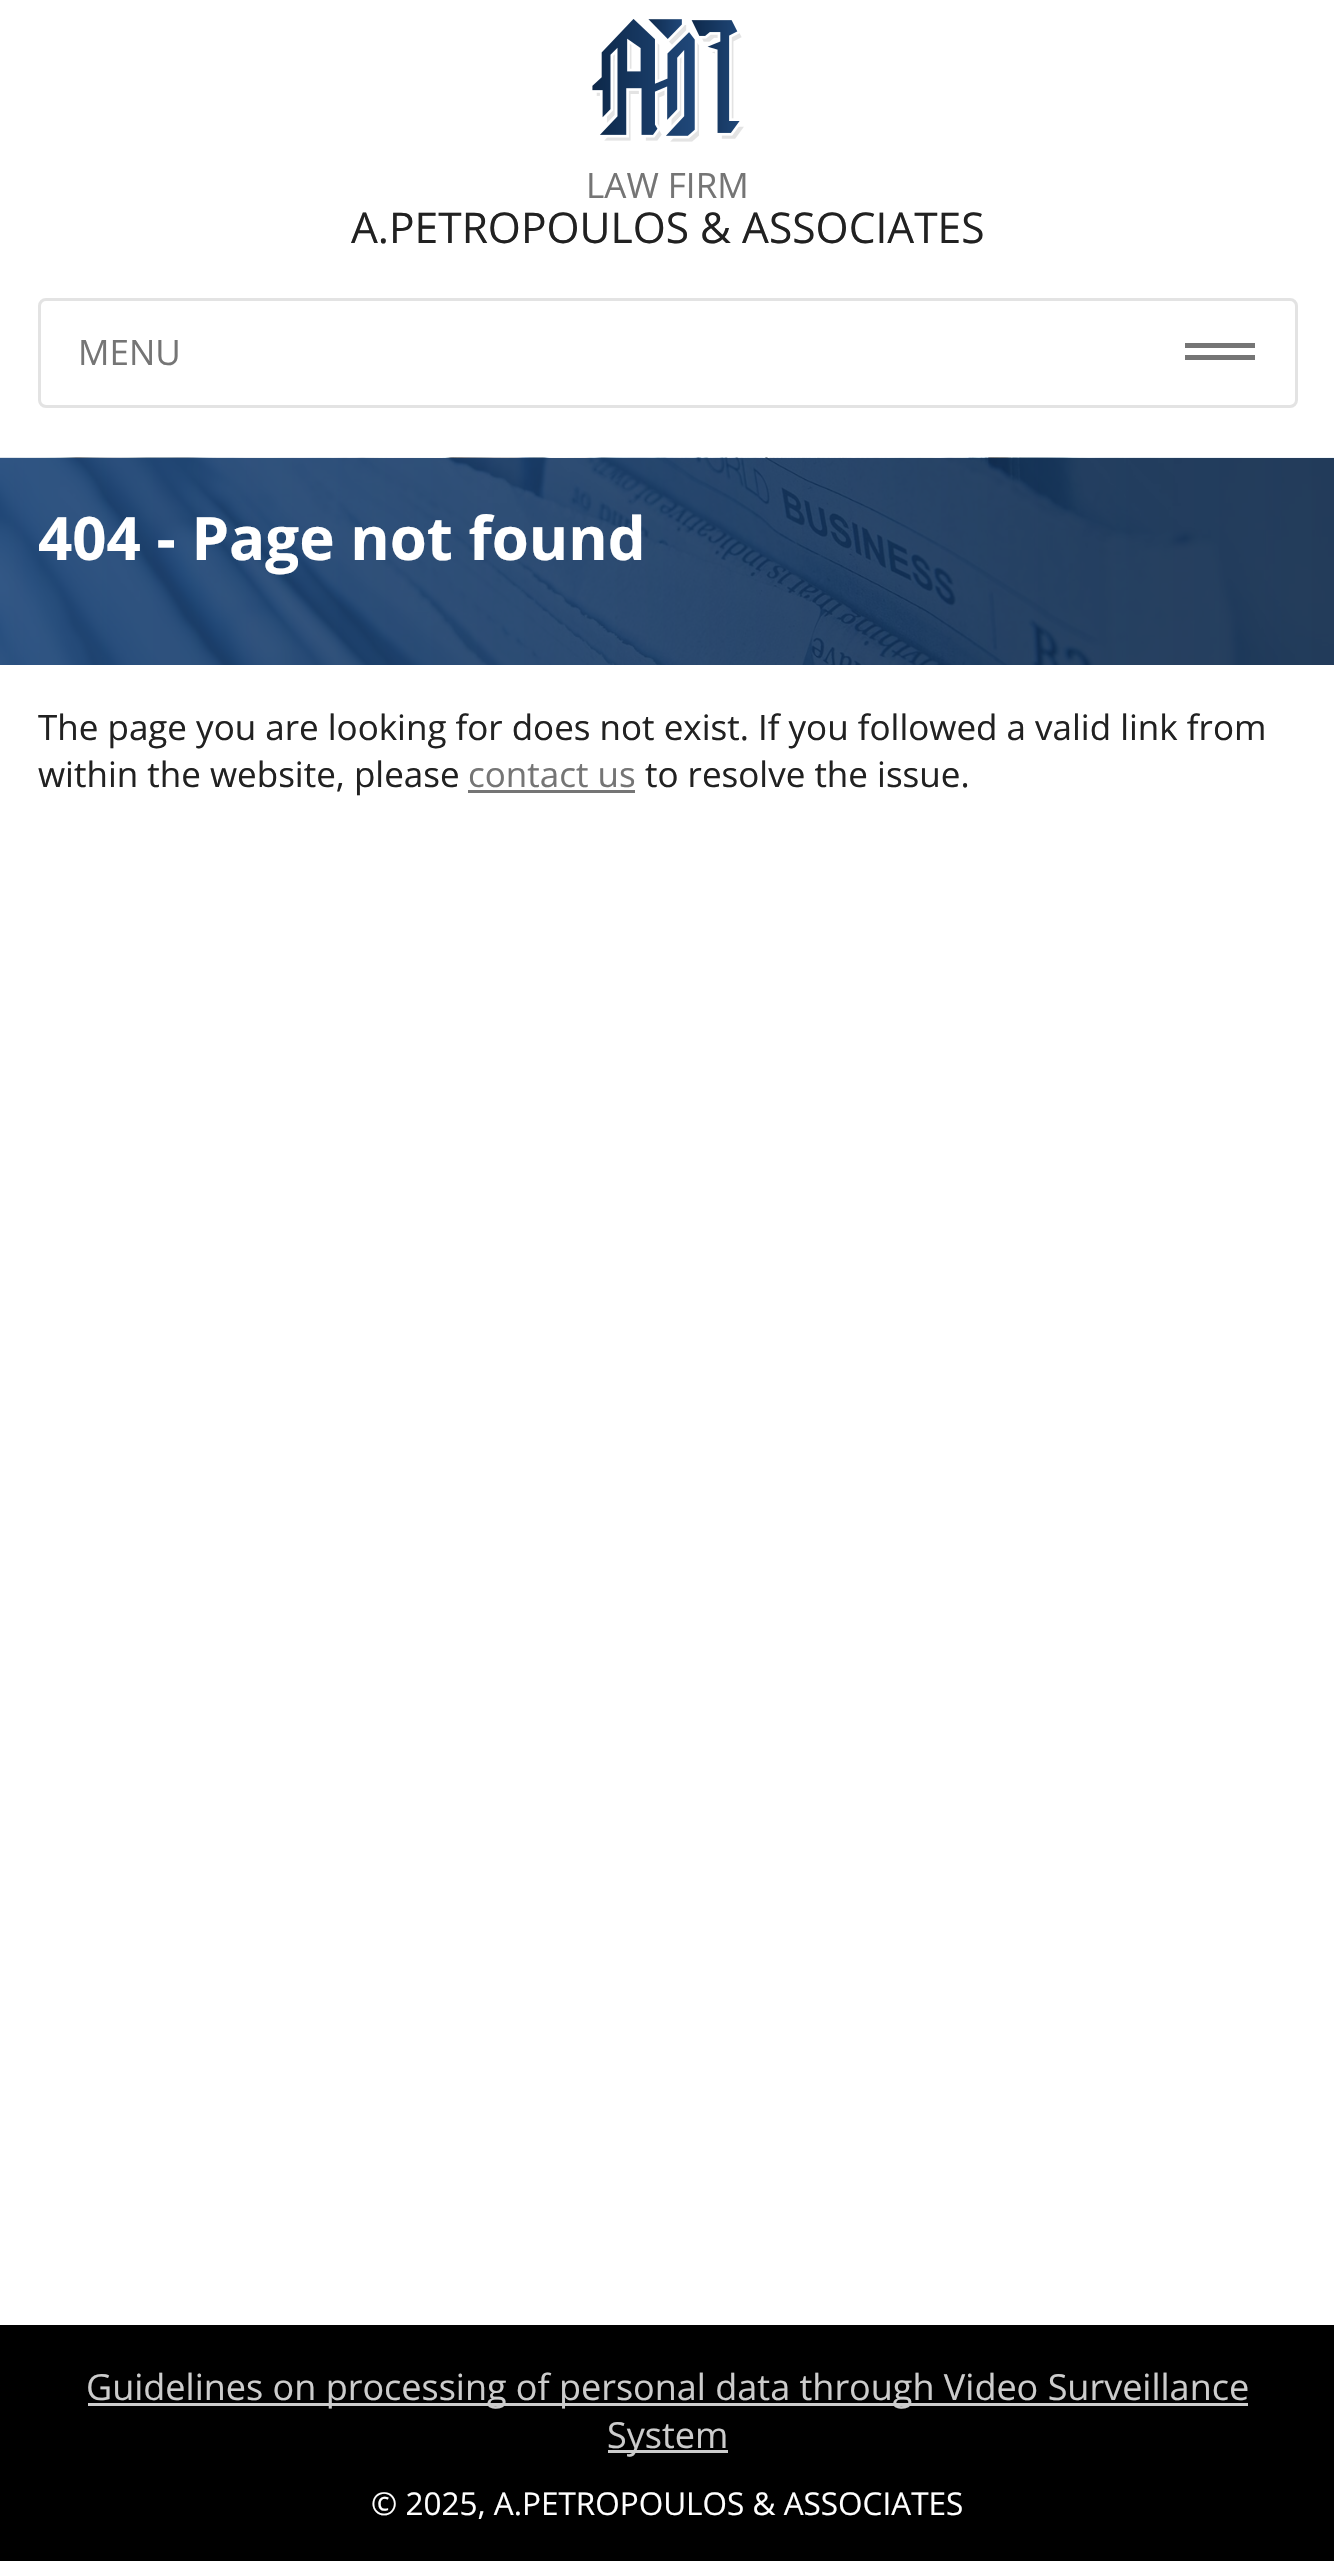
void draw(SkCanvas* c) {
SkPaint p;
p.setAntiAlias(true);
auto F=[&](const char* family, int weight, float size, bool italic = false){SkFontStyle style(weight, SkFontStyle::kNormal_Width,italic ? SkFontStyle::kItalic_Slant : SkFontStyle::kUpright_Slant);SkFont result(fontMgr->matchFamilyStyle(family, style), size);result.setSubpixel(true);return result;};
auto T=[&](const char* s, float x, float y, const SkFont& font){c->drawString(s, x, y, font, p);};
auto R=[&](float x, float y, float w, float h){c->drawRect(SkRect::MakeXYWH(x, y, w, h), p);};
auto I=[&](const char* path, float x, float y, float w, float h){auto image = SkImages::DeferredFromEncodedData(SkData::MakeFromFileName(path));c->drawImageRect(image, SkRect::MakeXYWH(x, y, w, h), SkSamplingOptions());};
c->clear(0xffffffff);
I("1.png",592,19,152,123);
auto f1 = F("Open Sans",400,35);
p.setColor(0xff757575);
T("LAW FIRM",586,198,f1);
auto f2 = F("Open Sans",400,42.5);
p.setColor(0xff212121);
T("A.PETROPOULOS & ASSOCIATES",351,243,f2);
p.setStroke(true);
p.setStrokeWidth(3);
p.setColor(0xffe3e3e3);
c->drawRoundRect(SkRect::MakeXYWH(39.5,299.5,1257,107),6.5,6.5,p);
p.setStroke(false);
p.setColor(0xff757575);
T("MENU",78,365,f1);
R(1185,343,70,5);
R(1185,355,70,5);
I("2.png",0,457,1334,208);
auto f3 = F("Open Sans",700,60);
p.setColor(0xffffffff);
T("404 - Page not found",38,560,f3);
p.setColor(0xff212121);
T("The page you are looking for does not exist. If you followed a valid link from",38,740,f1);
T("within the website, please",38,787,f1);
p.setColor(0xff757575);
T("contact us",468,787,f1);
R(468,790,167,3);
p.setColor(0xff212121);
T("to resolve the issue.",645,787,f1);
p.setColor(0xff000000);
R(0,2325,1334,236);
p.setColor(0xffcccccc);
R(88,2403,1160,3);
auto f4 = F("Open Sans",400,36);
T("Guidelines on processing of personal data through Video Surveillance",86,2400,f4);
R(608,2450,120,3);
T("System",607,2448,f4);
auto f5 = F("Open Sans",400,31.5);
p.setColor(0xffffffff);
T("© 2025, A.PETROPOULOS & ASSOCIATES",371,2515,f5);
}
